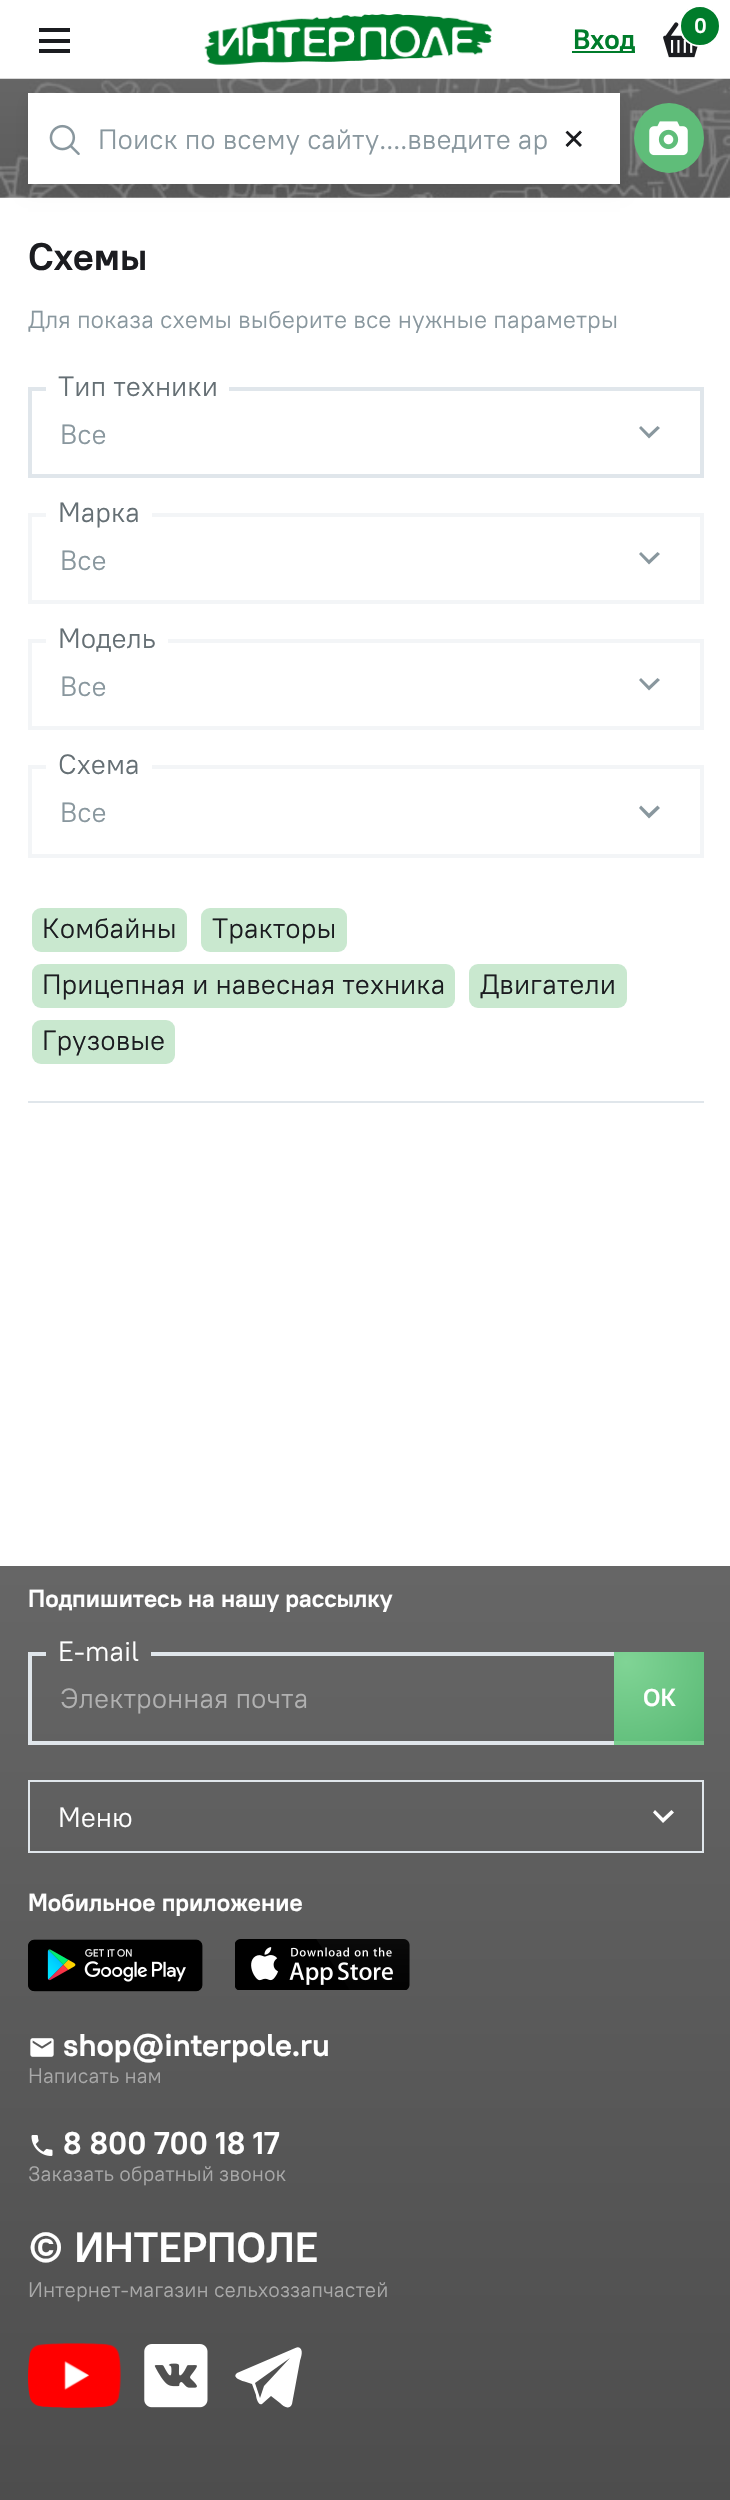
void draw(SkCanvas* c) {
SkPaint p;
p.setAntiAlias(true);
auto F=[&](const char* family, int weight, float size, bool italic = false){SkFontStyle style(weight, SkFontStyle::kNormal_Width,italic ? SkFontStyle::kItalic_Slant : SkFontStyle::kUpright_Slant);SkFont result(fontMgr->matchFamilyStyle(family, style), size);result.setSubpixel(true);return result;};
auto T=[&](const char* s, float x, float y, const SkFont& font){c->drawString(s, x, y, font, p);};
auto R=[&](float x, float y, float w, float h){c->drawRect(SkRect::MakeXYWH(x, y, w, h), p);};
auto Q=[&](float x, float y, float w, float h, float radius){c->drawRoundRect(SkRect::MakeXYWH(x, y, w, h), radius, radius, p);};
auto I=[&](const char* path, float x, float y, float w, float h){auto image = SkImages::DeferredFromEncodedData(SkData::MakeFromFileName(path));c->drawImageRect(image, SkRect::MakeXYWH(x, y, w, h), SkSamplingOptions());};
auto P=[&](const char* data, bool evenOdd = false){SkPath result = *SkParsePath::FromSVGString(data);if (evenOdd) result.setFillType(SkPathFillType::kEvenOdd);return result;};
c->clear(0xffffffff);
p.setColor(0xff1b1c20);
R(39,28,31,4);
R(39,39,31,4);
R(39,49,31,4);
I("1.png",204,14,288,51);
I("2.png",663,22,35,36);
p.setColor(0xff007c2b);
c->drawCircle(700,26,20,p);
p.setStroke(true);
p.setStrokeWidth(2);
p.setColor(0xffffffff);
c->drawCircle(700,26,20,p);
auto f1 = F("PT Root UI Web",700,21);
p.setStroke(false);
T("0",694,33,f1);
p.setColor(0xff007c2b);
R(572,51,63,2);
auto f2 = F("PT Root UI Web",700,28);
T("Вход",573,49,f2);
I("3.png",0,78,730,120);
p.setColor(0xff5fbd79);
c->drawCircle(669,138,35,p);
p.setColor(0x14000000);
p.setMaskFilter(SkMaskFilter::MakeBlur(kNormal_SkBlurStyle, 7));
c->drawRect(SkRect::MakeXYWH(28,100,592,91),p);
p.setMaskFilter(nullptr);
p.setColor(0xffffffff);
R(28,93,592,91);
I("4.png",49,124,31,31);
auto f3 = F("PT Root UI Web",400,28);
p.setColor(0xff89979e);
T("Поиск по всему сайту....введите ар",98,149,f3);
auto f4 = F("DejaVu Sans",400,28);
p.setColor(0xff1b1c20);
T("✕",562,149,f4);
I("5.png",649,121,39,35);
auto f5 = F("PT Root UI Web",700,38.5);
T("Схемы",28,270,f5);
auto f6 = F("PT Root UI Web",400,24.5);
p.setColor(0xff89979e);
T("Для показа схемы выберите все нужные параметры",28,328,f6);
p.setColor(0xffe0e6eb);
R(28,1101,676,2);
p.setStroke(true);
p.setStrokeWidth(4);
c->drawRect(SkRect::MakeXYWH(30,389,672,87),p);
p.setStroke(false);
p.setColor(0xffffffff);
R(46,387,183,4);
p.setColor(0xff656f74);
T("Тип техники",58,396,f3);
p.setColor(0xff89979e);
T("Все",60,444,f3);
c->drawPath(P("M657.5 426l-8.5 8l-8-8l-2 2l10 10.5l11-10.5z"),p);
p.setStroke(true);
p.setColor(0xfff3f5f7);
c->drawRect(SkRect::MakeXYWH(30,515,672,87),p);
p.setStroke(false);
p.setColor(0xffffffff);
R(46,513,106,4);
p.setColor(0xff656f74);
T("Марка",58,522,f3);
p.setColor(0xff89979e);
T("Все",60,570,f3);
c->drawPath(P("M657.5 552l-8.5 8l-8-8l-2 2l10 10.5l11-10.5z"),p);
p.setStroke(true);
p.setColor(0xfff3f5f7);
c->drawRect(SkRect::MakeXYWH(30,641,672,87),p);
p.setStroke(false);
p.setColor(0xffffffff);
R(46,639,122,4);
p.setColor(0xff656f74);
T("Модель",58,648,f3);
p.setColor(0xff89979e);
T("Все",60,696,f3);
c->drawPath(P("M657.5 678l-8.5 8l-8-8l-2 2l10 10.5l11-10.5z"),p);
p.setStroke(true);
p.setColor(0xfff3f5f7);
c->drawRect(SkRect::MakeXYWH(30,767,672,89),p);
p.setStroke(false);
p.setColor(0xffffffff);
R(46,765,106,4);
p.setColor(0xff656f74);
T("Схема",58,774,f3);
p.setColor(0xff89979e);
T("Все",60,822,f3);
c->drawPath(P("M657.5 805.5l-8.5 8l-8-8l-2 2.5l10 10.5l11-10.5z"),p);
p.setColor(0xffc9e8cf);
Q(32,908,155,44,9);
p.setColor(0xff1b1c20);
T("Комбайны",42,938,f3);
p.setColor(0xffc9e8cf);
Q(201,908,146,44,9);
p.setColor(0xff1b1c20);
T("Тракторы",212,938,f3);
p.setColor(0xffc9e8cf);
Q(32,964,423,44,9);
p.setColor(0xff1b1c20);
T("Прицепная и навесная техника",42,994,f3);
p.setColor(0xffc9e8cf);
Q(469,964,158,44,9);
p.setColor(0xff1b1c20);
T("Двигатели",480,994,f3);
p.setColor(0xffc9e8cf);
Q(32,1020,143,44,9);
p.setColor(0xff1b1c20);
T("Грузовые",42,1050,f3);
{
const SkColor colors[] = {0xff666666,0xff4d4d4d};
const float stops[] = {0,1};
const SkPoint ends[] = {{366,1566}, {366,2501}};
p.setShader(SkGradientShader::MakeLinear(ends, colors, stops, 2, SkTileMode::kClamp));
p.setAlpha(255);
}
R(0,1566,730,934);
auto f7 = F("PT Root UI Web",700,24.5);
p.setShader(nullptr);
p.setColor(0xffffffff);
T("Подпишитесь на нашу рассылку",28,1607,f7);
p.setColor(0xffe0e6eb);
R(28,1652,586,4);
p.setColor(0xff646464);
R(46,1652,105,4);
p.setColor(0xffffffff);
T("E-mail",58,1661,f3);
p.setColor(0xffe0e6eb);
R(28,1741,586,4);
R(28,1652,4,93);
p.setColor(0xffb1b1b1);
T("Электронная почта",60,1708,f3);
{
const SkColor colors[] = {0xff80d495,0xff007c2b};
const float stops[] = {0,1};
p.setShader(SkGradientShader::MakeRadial({626,1662}, 364, colors, stops, 2, SkTileMode::kClamp));
p.setAlpha(255);
}
R(614,1652,90,89);
p.setShader(nullptr);
p.setColor(0xff79cf8f);
R(614,1741,90,4);
p.setColor(0xffffffff);
T("ОК",643,1706,f7);
p.setStroke(true);
p.setStrokeWidth(2);
p.setColor(0xffe0e6eb);
c->drawRect(SkRect::MakeXYWH(29,1781,674,71),p);
p.setStroke(false);
p.setColor(0xffffffff);
T("Меню",58,1827,f3);
c->drawPath(P("M671.5 1810l-8.5 8l-8-8l-2 2.5l10 10.5l11-10.5z"),p);
T("Мобильное приложение",28,1911,f7);
I("6.png",28,1939,175,53);
I("7.png",235,1939,175,51);
I("8.png",30,2038,24,19);
auto f8 = F("PT Root UI Web",700,31.5);
T("shop@interpole.ru",63,2056,f8);
auto f9 = F("PT Root UI Web",400,21);
p.setColor(0xffa9a9a9);
T("Написать нам",28,2083,f9);
I("9.png",31,2135,22,21);
p.setColor(0xffffffff);
T("8 800 700 18 17",63,2154,f8);
p.setColor(0xffa9a9a9);
T("Заказать обратный звонок",28,2181,f9);
auto f10 = F("PT Root UI Web",700,42);
p.setColor(0xffffffff);
T("© ИНТЕРПОЛЕ",28,2262,f10);
p.setColor(0xffa9a9a9);
T("Интернет-магазин сельхоззапчастей",28,2297,f9);
I("10.png",28,2343,93,65);
I("11.png",144,2344,64,64);
p.setColor(0xffffffff);
c->drawPath(P("M300 2348c-2-2-5 0-7 1l-56 24c-6 5 6 8 9 9l6 2l4 11c0 2 2 11 6 9l9-8l9 7c3 3 9 8 12 1l8-43c0-1 4-10 0-13zm-36 38l-4 12l-5-15l35-25z"),p);
}
